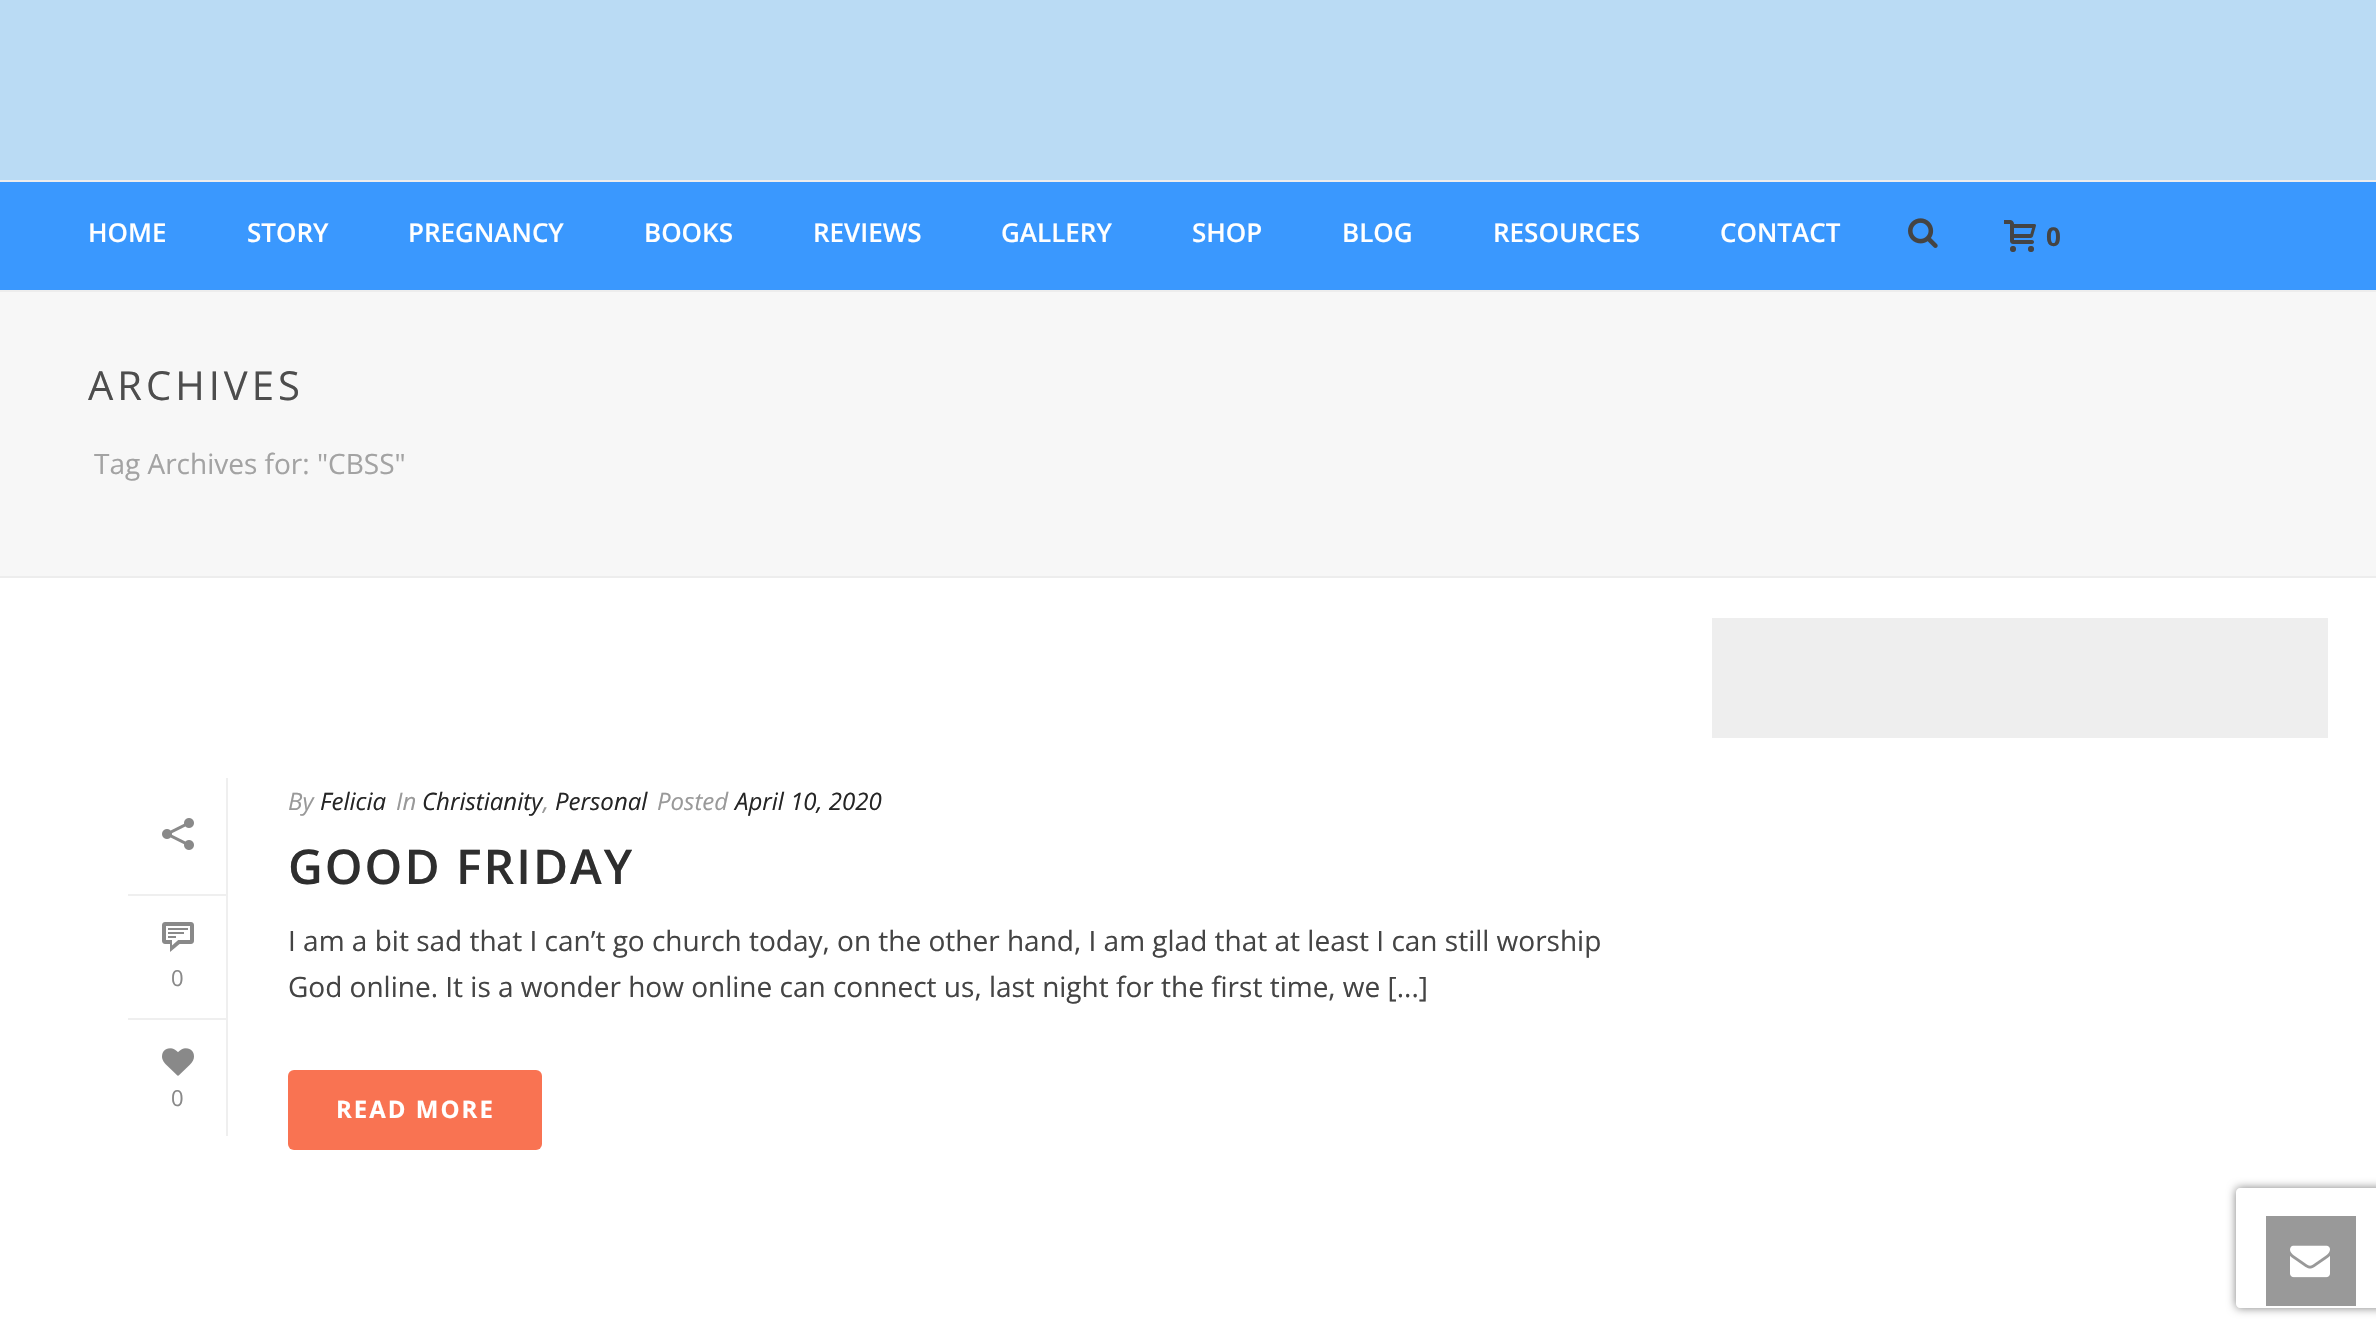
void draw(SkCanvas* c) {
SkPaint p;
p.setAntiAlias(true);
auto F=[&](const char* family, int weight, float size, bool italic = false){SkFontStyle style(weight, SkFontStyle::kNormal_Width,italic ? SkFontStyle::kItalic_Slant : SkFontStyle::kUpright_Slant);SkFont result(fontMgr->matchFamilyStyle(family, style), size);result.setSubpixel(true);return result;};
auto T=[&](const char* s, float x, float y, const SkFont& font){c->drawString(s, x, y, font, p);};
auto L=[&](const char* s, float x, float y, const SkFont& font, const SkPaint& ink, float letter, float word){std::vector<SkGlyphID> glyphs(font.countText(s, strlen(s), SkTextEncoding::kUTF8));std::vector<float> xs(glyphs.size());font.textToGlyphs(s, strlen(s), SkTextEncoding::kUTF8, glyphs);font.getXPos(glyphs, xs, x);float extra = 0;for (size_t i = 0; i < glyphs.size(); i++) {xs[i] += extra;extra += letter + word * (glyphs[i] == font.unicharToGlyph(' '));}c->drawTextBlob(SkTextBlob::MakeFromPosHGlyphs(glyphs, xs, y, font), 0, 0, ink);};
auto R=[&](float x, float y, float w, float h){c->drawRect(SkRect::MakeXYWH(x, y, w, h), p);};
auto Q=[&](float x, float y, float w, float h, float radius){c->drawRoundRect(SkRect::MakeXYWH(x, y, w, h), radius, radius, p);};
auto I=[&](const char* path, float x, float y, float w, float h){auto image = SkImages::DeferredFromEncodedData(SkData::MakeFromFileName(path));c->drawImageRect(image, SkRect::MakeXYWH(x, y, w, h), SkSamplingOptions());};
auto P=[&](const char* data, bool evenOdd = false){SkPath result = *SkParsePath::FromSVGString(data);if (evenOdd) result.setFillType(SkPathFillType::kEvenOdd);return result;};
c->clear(0xffffffff);
p.setColor(0xfff7f7f7);
R(0,292,2376,284);
p.setColor(0xffededed);
R(0,576,2376,2);
R(0,290,2376,2);
p.setColor(0xffbadbf4);
R(0,0,2376,180);
p.setColor(0xff3a98fe);
R(0,182,2376,108);
p.setColor(0xffededed);
R(0,180,2376,2);
auto f1 = F("Open Sans",600,26);
p.setColor(0xffffffff);
T("HOME",88,242,f1);
T("STORY",247,242,f1);
T("PREGNANCY",408,242,f1);
T("BOOKS",644,242,f1);
T("REVIEWS",813,242,f1);
T("GALLERY",1001,242,f1);
T("SHOP",1192,242,f1);
T("BLOG",1342,242,f1);
T("RESOURCES",1493,242,f1);
T("CONTACT",1720,242,f1);
I("1.png",1908,218,30,30);
I("2.png",2004,220,32,32);
auto f2 = F("Open Sans",700,26);
p.setColor(0xff444444);
T("0",2046,246,f2);
auto f3 = F("Open Sans",400,40);
p.setColor(0xff4d4d4d);
L("ARCHIVES",88,400,f3,p,4,0);
auto f4 = F("Open Sans",400,28);
p.setColor(0xffa3a3a3);
T("Tag Archives for: \"CBSS\"",94,474,f4);
p.setColor(0xffeeeeee);
R(1712,618,616,120);
p.setColor(0xffefefef);
R(226,778,2,358);
R(128,894,98,2);
I("3.png",162,818,32,32);
R(128,1018,98,2);
I("4.png",162,922,32,30);
auto f5 = F("Open Sans",400,22);
p.setColor(0xff898989);
T("0",171,986,f5);
I("5.png",162,1048,32,28);
T("0",171,1106,f5);
auto f6 = F("Open Sans",400,24,true);
p.setColor(0xff999999);
T("By",288,810,f6);
p.setColor(0xff252525);
T("Felicia",320,810,f6);
p.setColor(0xff999999);
T("In",396,810,f6);
p.setColor(0xff252525);
T("Christianity",422,810,f6);
T("Personal",555,810,f6);
p.setColor(0xff999999);
T(",",543,810,f6);
T("Posted",657,810,f6);
p.setColor(0xff252525);
T("April 10, 2020",735,810,f6);
auto f7 = F("Open Sans",600,48);
p.setColor(0xff2e2e2e);
L("GOOD FRIDAY",288,884,f7,p,2,0);
p.setColor(0xff444444);
T("I am a bit sad that I can’t go church today, on the other hand, I am glad that at least I can still worship",288,951,f4);
T("God online. It is a wonder how online can connect us, last night for the first time, we [...]",288,997,f4);
p.setColor(0xfff97352);
Q(288,1070,254,80,6);
auto f8 = F("Open Sans",700,24);
p.setColor(0xffffffff);
L("READ MORE",336,1118,f8,p,2,0);
c->save();
c->clipPath(P("M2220 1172h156v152h-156zm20 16h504c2 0 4 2 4 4v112c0 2-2 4-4 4h-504c-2 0-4-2-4-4v-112c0-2 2-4 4-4z",true),true);
p.setColor(0xff808080);
p.setMaskFilter(SkMaskFilter::MakeBlur(kNormal_SkBlurStyle, 5));
c->drawRoundRect(SkRect::MakeXYWH(2236,1188,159,120),4,4,p);
p.setMaskFilter(nullptr);
c->restore();
p.setColor(0xff999999);
R(2266,1216,90,90);
I("6.png",2290,1245,40,33);
}
